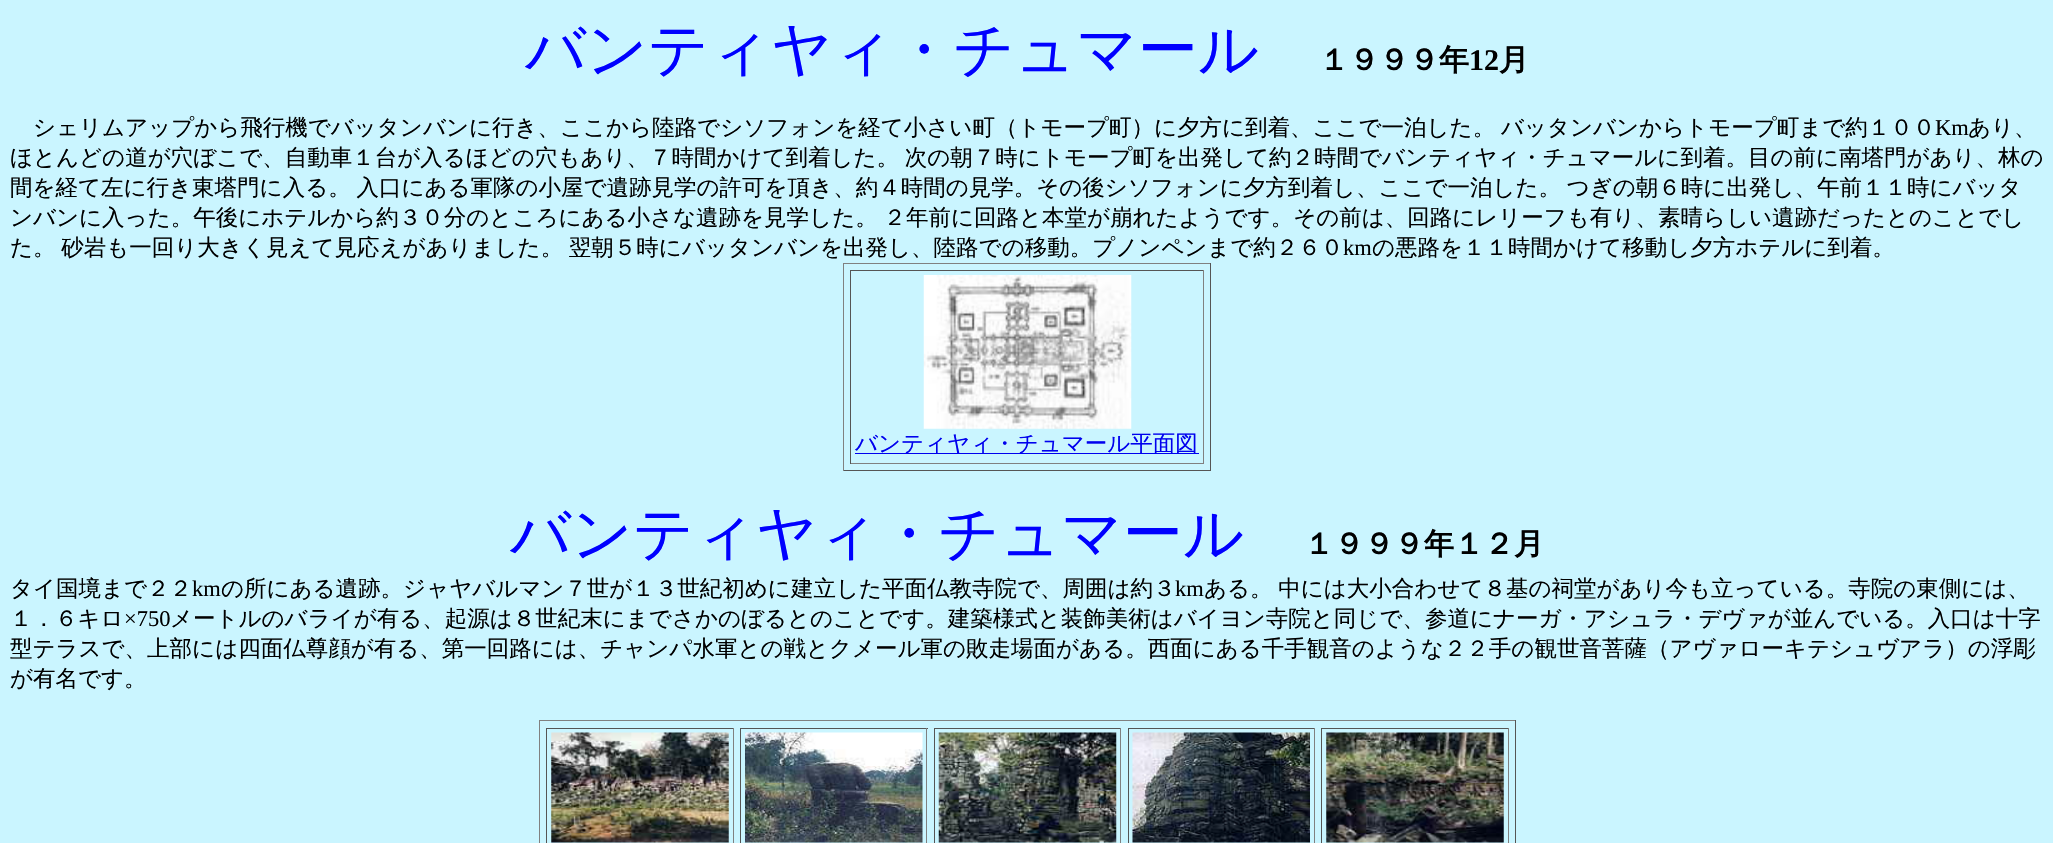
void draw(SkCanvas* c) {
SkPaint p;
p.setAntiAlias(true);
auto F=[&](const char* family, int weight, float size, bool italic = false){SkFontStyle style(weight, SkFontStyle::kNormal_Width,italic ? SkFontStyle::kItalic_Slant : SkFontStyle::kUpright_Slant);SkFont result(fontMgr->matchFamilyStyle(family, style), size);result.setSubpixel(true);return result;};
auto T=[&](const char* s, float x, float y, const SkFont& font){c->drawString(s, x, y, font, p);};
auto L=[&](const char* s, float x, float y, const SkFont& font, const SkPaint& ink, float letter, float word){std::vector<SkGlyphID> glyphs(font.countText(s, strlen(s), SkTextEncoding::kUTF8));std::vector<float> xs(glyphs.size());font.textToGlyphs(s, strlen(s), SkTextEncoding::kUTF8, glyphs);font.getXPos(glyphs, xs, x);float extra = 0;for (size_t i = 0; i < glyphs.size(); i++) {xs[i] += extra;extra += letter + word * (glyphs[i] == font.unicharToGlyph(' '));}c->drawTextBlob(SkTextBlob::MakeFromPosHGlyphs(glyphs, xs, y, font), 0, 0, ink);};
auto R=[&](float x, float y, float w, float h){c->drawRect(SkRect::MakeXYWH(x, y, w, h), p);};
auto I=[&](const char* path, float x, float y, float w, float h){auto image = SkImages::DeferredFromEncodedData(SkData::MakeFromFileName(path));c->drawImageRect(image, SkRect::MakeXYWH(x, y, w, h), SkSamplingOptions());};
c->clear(0xffcaf5ff);
auto f1 = F("WenQuanYi Zen Hei",500,60);
p.setColor(0xff0000ff);
T("バンティヤィ・チュマール",525,70,f1);
auto f2 = F("WenQuanYi Zen Hei",700,30);
p.setColor(0xff000000);
T("１９９９年",1319,70,f2);
auto f3 = F("Liberation Serif",700,30);
T("12",1469,70,f3);
T("月",1499,70,f2);
auto f4 = F("WenQuanYi Zen Hei",500,22.5);
L("シェリムアップから飛行機でバッタンバンに行き、ここから陸路でシソフォンを経て小さい町（トモープ町）に夕方に到着、ここで一泊した。 バッタンバンからトモープ町まで約１００",33,135,f4,p,0,-1);
auto f5 = F("Liberation Serif",400,22.5);
T("Km",1935,135,f5);
T("あり、",1968,135,f4);
L("ほとんどの道が穴ぼこで、自動車１台が入るほどの穴もあり、７時間かけて到着した。 次の朝７時にトモープ町を出発して約２時間でバンティヤィ・チュマールに到着。目の前に南塔門があり、林の",10,165,f4,p,0,-1);
L("間を経て左に行き東塔門に入る。 入口にある軍隊の小屋で遺跡見学の許可を頂き、約４時間の見学。その後シソフォンに夕方到着し、ここで一泊した。 つぎの朝６時に出発し、午前１１時にバッタ",10,195,f4,p,0,-1);
L("ンバンに入った。午後にホテルから約３０分のところにある小さな遺跡を見学した。 ２年前に回路と本堂が崩れたようです。その前は、回路にレリーフも有り、素晴らしい遺跡だったとのことでし",10,225,f4,p,0,-1);
L("た。 砂岩も一回り大きく見えて見応えがありました。 翌朝５時にバッタンバンを出発し、陸路での移動。プノンペンまで約２６０",10,255,f4,p,0,-1);
T("km",1343,255,f5);
T("の悪路を１１時間かけて移動し夕方ホテルに到着。",1372,255,f4);
p.setColor(0xff808080);
R(843,263,368,1);
p.setColor(0xff555555);
R(1210,263,1,208);
R(843,470,368,1);
p.setColor(0xff808080);
R(843,263,1,208);
p.setColor(0xff555555);
R(850,270,354,1);
p.setColor(0xff808080);
R(1203,270,1,194);
R(850,463,354,1);
p.setColor(0xff555555);
R(850,270,1,194);
I("1.png",923,275,209,154);
p.setColor(0xff0000ee);
R(855,453,344,1);
T("バンティヤィ・チュマール平面図",855,451,f4);
p.setColor(0xff0000ff);
T("バンティヤィ・チュマール",510,554,f1);
p.setColor(0xff000000);
T("１９９９年１２月",1304,554,f2);
T("タイ国境まで２２",10,596,f4);
T("km",192,596,f5);
T("の所にある遺跡。ジャヤバルマン７世が１３世紀初めに建立した平面仏教寺院で、周囲は約３",221,596,f4);
T("km",1175,596,f5);
L("ある。 中には大小合わせて８基の祠堂があり今も立っている。寺院の東側には、",1204,596,f4,p,0,-1);
T("１．６キロ",10,626,f4);
T("×750",124,626,f5);
T("メートルのバライが有る、起源は８世紀末にまでさかのぼるとのことです。建築様式と装飾美術はバイヨン寺院と同じで、参道にナーガ・アシュラ・デヴァが並んでいる。入口は十字",170,626,f4);
T("型テラスで、上部には四面仏尊顔が有る、第一回路には、チャンパ水軍との戦とクメール軍の敗走場面がある。西面にある千手観音のような２２手の観世音菩薩（アヴァローキテシュヴアラ）の浮彫",10,656,f4);
T("が有名です。",10,686,f4);
p.setColor(0xff808080);
R(539,720,977,1);
p.setColor(0xff555555);
R(1515,720,1,123);
p.setColor(0xff808080);
R(539,720,1,123);
p.setColor(0xff555555);
R(546,728,188,1);
p.setColor(0xff808080);
R(733,728,1,115);
p.setColor(0xff555555);
R(546,728,1,115);
I("2.png",551,732,178,111);
R(740,728,188,1);
p.setColor(0xff808080);
R(926,728,1,115);
p.setColor(0xff555555);
R(740,728,1,115);
I("3.png",745,732,178,111);
R(934,728,187,1);
p.setColor(0xff808080);
R(1120,728,1,115);
p.setColor(0xff555555);
R(934,728,1,115);
I("4.png",938,732,179,111);
R(1128,728,187,1);
p.setColor(0xff808080);
R(1314,728,1,115);
p.setColor(0xff555555);
R(1128,728,1,115);
I("5.png",1132,732,178,111);
R(1321,728,188,1);
p.setColor(0xff808080);
R(1508,728,1,115);
p.setColor(0xff555555);
R(1321,728,1,115);
I("6.png",1326,732,178,111);
}
